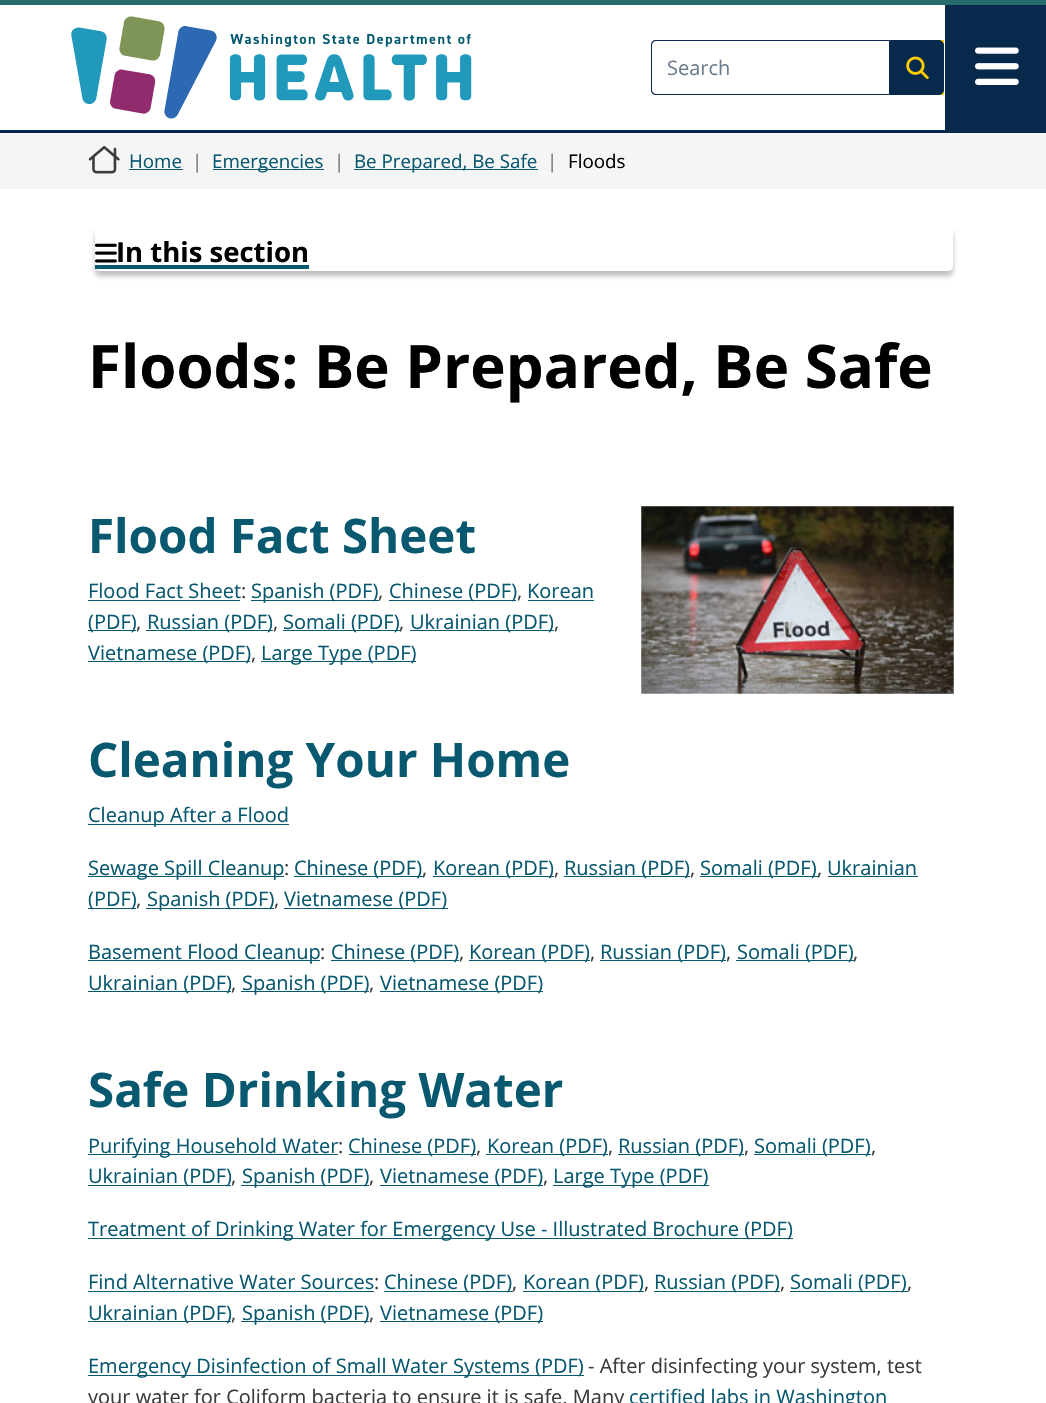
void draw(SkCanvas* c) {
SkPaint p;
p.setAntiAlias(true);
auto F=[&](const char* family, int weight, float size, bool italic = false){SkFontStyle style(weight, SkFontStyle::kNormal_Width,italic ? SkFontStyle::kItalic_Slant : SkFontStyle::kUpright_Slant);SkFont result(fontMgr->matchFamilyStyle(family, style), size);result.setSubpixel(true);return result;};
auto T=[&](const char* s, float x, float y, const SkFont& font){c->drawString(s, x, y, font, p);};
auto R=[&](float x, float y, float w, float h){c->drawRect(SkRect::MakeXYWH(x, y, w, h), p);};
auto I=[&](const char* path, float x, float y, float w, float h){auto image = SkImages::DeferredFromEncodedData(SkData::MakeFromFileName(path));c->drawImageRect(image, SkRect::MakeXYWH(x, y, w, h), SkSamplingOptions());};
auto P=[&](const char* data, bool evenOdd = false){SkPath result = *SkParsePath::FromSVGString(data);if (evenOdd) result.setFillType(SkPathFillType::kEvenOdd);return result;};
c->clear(0xffffffff);
p.setColor(0xff266c6c);
R(0,0,1046,5);
I("1.png",71,16,401,103);
p.setColor(0xff07294c);
c->drawPath(P("M656 40h233v55h-233c-3 0-5-2-5-5v-45c0-3 2-5 5-5zm0 1h233v53h-233c-2 0-4-2-4-4v-45c0-2 2-4 4-4z",true),p);
auto f1 = F("Open Sans",400,20);
p.setColor(0xff6b7c8f);
T("Search",667,75,f1);
p.setColor(0xffffcc00);
R(939,40,5,55);
p.setColor(0xff07294c);
c->drawPath(P("M889.5 40.5h49.5c2.5 0 4.5 2 4.5 4.5v45c0 2.5-2 4.5-4.5 4.5h-49.5z"),p);
p.setStroke(true);
p.setStrokeWidth(1);
c->drawPath(P("M889.5 40.5h49.5c2.5 0 4.5 2 4.5 4.5v45c0 2.5-2 4.5-4.5 4.5h-49.5z"),p);
I("2.png",906,56,23,23);
p.setStroke(false);
R(945,5,101,125);
I("3.png",975,47,44,38);
R(0,130,1046,3);
p.setColor(0xfff5f5f5);
R(0,133,1046,56);
I("4.png",88,145,32,29);
auto f2 = F("Open Sans",400,18.75);
p.setColor(0xff08586f);
T("Home",129,168,f2);
R(129,169,54,1);
p.setColor(0xff6c757d);
T("|",192,168,f2);
p.setColor(0xff08586f);
R(213,169,111,1);
T("Emergencies",212,168,f2);
p.setColor(0xff6c757d);
T("|",334,168,f2);
p.setColor(0xff08586f);
R(354,169,184,1);
T("Be Prepared, Be Safe",354,168,f2);
p.setColor(0xff6c757d);
T("|",547,168,f2);
p.setColor(0xff000000);
T("Floods",568,168,f2);
c->save();
c->clipPath(P("M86 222h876v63h-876zm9 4h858v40c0 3-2 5-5 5h-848c-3 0-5-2-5-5z",true),true);
p.setColor(0x40000000);
p.setMaskFilter(SkMaskFilter::MakeBlur(kNormal_SkBlurStyle, 2.5));
c->drawRoundRect(SkRect::MakeXYWH(95,231,858,45),5,5,p);
p.setMaskFilter(nullptr);
c->restore();
I("5.png",95,243,22,20);
auto f3 = F("Open Sans",700,27.5);
p.setColor(0xff000000);
T("In this section",116,262,f3);
p.setColor(0xff08586f);
R(95,265,214,4);
auto f4 = F("Open Sans",700,60);
p.setColor(0xff000000);
T("Floods: Be Prepared, Be Safe",88,388,f4);
auto f5 = F("Open Sans",700,47.5);
p.setColor(0xff08586f);
T("Flood Fact Sheet",88,553,f5);
I("6.png",641,506,313,188);
T("Flood Fact Sheet",88,598,f1);
R(88,600,152,1);
p.setColor(0xff3b3b3b);
T(":",241,598,f1);
p.setColor(0xff08586f);
R(251,600,128,1);
T("Spanish (PDF)",251,598,f1);
p.setColor(0xff3b3b3b);
T(",",378,598,f1);
p.setColor(0xff08586f);
R(389,600,127,1);
T("Chinese (PDF)",389,598,f1);
p.setColor(0xff3b3b3b);
T(",",517,598,f1);
p.setColor(0xff08586f);
T("Korean",527,598,f1);
R(528,600,66,1);
R(88,630,48,1);
T("(PDF)",88,629,f1);
p.setColor(0xff3b3b3b);
T(",",136,629,f1);
p.setColor(0xff08586f);
R(146,630,127,1);
T("Russian (PDF)",147,629,f1);
p.setColor(0xff3b3b3b);
T(",",273,629,f1);
p.setColor(0xff08586f);
R(283,630,117,1);
T("Somali (PDF)",283,629,f1);
p.setColor(0xff3b3b3b);
T(",",399,629,f1);
p.setColor(0xff08586f);
R(410,630,144,1);
T("Ukrainian (PDF)",410,629,f1);
p.setColor(0xff3b3b3b);
T(",",554,629,f1);
p.setColor(0xff08586f);
R(88,661,162,1);
T("Vietnamese (PDF)",88,660,f1);
p.setColor(0xff3b3b3b);
T(",",251,660,f1);
p.setColor(0xff08586f);
R(261,661,155,1);
T("Large Type (PDF)",261,660,f1);
T("Cleaning Your Home",88,777,f5);
R(88,824,201,1);
T("Cleanup After a Flood",88,822,f1);
R(88,876,196,1);
T("Sewage Spill Cleanup",88,875,f1);
p.setColor(0xff3b3b3b);
T(":",284,875,f1);
p.setColor(0xff08586f);
R(294,876,129,1);
T("Chinese (PDF)",294,875,f1);
p.setColor(0xff3b3b3b);
T(",",422,875,f1);
p.setColor(0xff08586f);
R(433,876,121,1);
T("Korean (PDF)",433,875,f1);
p.setColor(0xff3b3b3b);
T(",",554,875,f1);
p.setColor(0xff08586f);
R(564,876,126,1);
T("Russian (PDF)",564,875,f1);
p.setColor(0xff3b3b3b);
T(",",690,875,f1);
p.setColor(0xff08586f);
R(700,876,118,1);
T("Somali (PDF)",700,875,f1);
p.setColor(0xff3b3b3b);
T(",",817,875,f1);
p.setColor(0xff08586f);
T("Ukrainian",827,875,f1);
R(828,876,90,1);
R(88,908,48,1);
T("(PDF)",88,906,f1);
p.setColor(0xff3b3b3b);
T(",",136,906,f1);
p.setColor(0xff08586f);
R(146,908,128,1);
T("Spanish (PDF)",147,906,f1);
p.setColor(0xff3b3b3b);
T(",",274,906,f1);
p.setColor(0xff08586f);
R(284,908,164,1);
T("Vietnamese (PDF)",284,906,f1);
R(88,960,232,1);
T("Basement Flood Cleanup",88,959,f1);
p.setColor(0xff3b3b3b);
T(":",320,959,f1);
p.setColor(0xff08586f);
R(331,960,128,1);
T("Chinese (PDF)",331,959,f1);
p.setColor(0xff3b3b3b);
T(",",459,959,f1);
p.setColor(0xff08586f);
R(469,960,121,1);
T("Korean (PDF)",469,959,f1);
p.setColor(0xff3b3b3b);
T(",",590,959,f1);
p.setColor(0xff08586f);
R(600,960,126,1);
T("Russian (PDF)",600,959,f1);
p.setColor(0xff3b3b3b);
T(",",726,959,f1);
p.setColor(0xff08586f);
R(736,960,118,1);
T("Somali (PDF)",737,959,f1);
p.setColor(0xff3b3b3b);
T(",",853,959,f1);
p.setColor(0xff08586f);
R(88,991,143,1);
T("Ukrainian (PDF)",88,990,f1);
p.setColor(0xff3b3b3b);
T(",",231,990,f1);
p.setColor(0xff08586f);
R(241,991,128,1);
T("Spanish (PDF)",242,990,f1);
p.setColor(0xff3b3b3b);
T(",",369,990,f1);
p.setColor(0xff08586f);
R(380,991,163,1);
T("Vietnamese (PDF)",380,990,f1);
T("Safe Drinking Water",88,1107,f5);
R(88,1154,250,1);
T("Purifying Household Water",88,1153,f1);
p.setColor(0xff3b3b3b);
T(":",338,1153,f1);
p.setColor(0xff08586f);
R(349,1154,127,1);
T("Chinese (PDF)",348,1153,f1);
p.setColor(0xff3b3b3b);
T(",",476,1153,f1);
p.setColor(0xff08586f);
R(486,1154,122,1);
T("Korean (PDF)",487,1153,f1);
p.setColor(0xff3b3b3b);
T(",",608,1153,f1);
p.setColor(0xff08586f);
R(618,1154,126,1);
T("Russian (PDF)",618,1153,f1);
p.setColor(0xff3b3b3b);
T(",",744,1153,f1);
p.setColor(0xff08586f);
R(754,1154,117,1);
T("Somali (PDF)",754,1153,f1);
p.setColor(0xff3b3b3b);
T(",",871,1153,f1);
p.setColor(0xff08586f);
R(88,1185,143,1);
T("Ukrainian (PDF)",88,1183,f1);
p.setColor(0xff3b3b3b);
T(",",231,1183,f1);
p.setColor(0xff08586f);
R(241,1185,128,1);
T("Spanish (PDF)",242,1183,f1);
p.setColor(0xff3b3b3b);
T(",",369,1183,f1);
p.setColor(0xff08586f);
R(380,1185,163,1);
T("Vietnamese (PDF)",380,1183,f1);
p.setColor(0xff3b3b3b);
T(",",543,1183,f1);
p.setColor(0xff08586f);
R(553,1185,156,1);
T("Large Type (PDF)",553,1183,f1);
R(88,1238,705,1);
T("Treatment of Drinking Water for Emergency Use - Illustrated Brochure (PDF)",88,1236,f1);
T("Find Alternative Water Sources",88,1289,f1);
R(88,1291,286,1);
p.setColor(0xff3b3b3b);
T(":",374,1289,f1);
p.setColor(0xff08586f);
R(384,1291,129,1);
T("Chinese (PDF)",384,1289,f1);
p.setColor(0xff3b3b3b);
T(",",512,1289,f1);
p.setColor(0xff08586f);
R(523,1291,121,1);
T("Korean (PDF)",523,1289,f1);
p.setColor(0xff3b3b3b);
T(",",644,1289,f1);
p.setColor(0xff08586f);
R(654,1291,126,1);
T("Russian (PDF)",654,1289,f1);
p.setColor(0xff3b3b3b);
T(",",780,1289,f1);
p.setColor(0xff08586f);
R(790,1291,118,1);
T("Somali (PDF)",790,1289,f1);
p.setColor(0xff3b3b3b);
T(",",907,1289,f1);
p.setColor(0xff08586f);
R(88,1321,143,1);
T("Ukrainian (PDF)",88,1320,f1);
p.setColor(0xff3b3b3b);
T(",",231,1320,f1);
p.setColor(0xff08586f);
R(241,1321,128,1);
T("Spanish (PDF)",242,1320,f1);
p.setColor(0xff3b3b3b);
T(",",369,1320,f1);
p.setColor(0xff08586f);
R(380,1321,163,1);
T("Vietnamese (PDF)",380,1320,f1);
R(88,1375,496,1);
T("Emergency Disinfection of Small Water Systems (PDF)",88,1373,f1);
p.setColor(0xff3b3b3b);
T("- After disinfecting your system, test",588,1373,f1);
T("your water for Coliform bacteria to ensure it is safe. Many",88,1404,f1);
p.setColor(0xff08586f);
T("certified labs in Washington",629,1404,f1);
}
